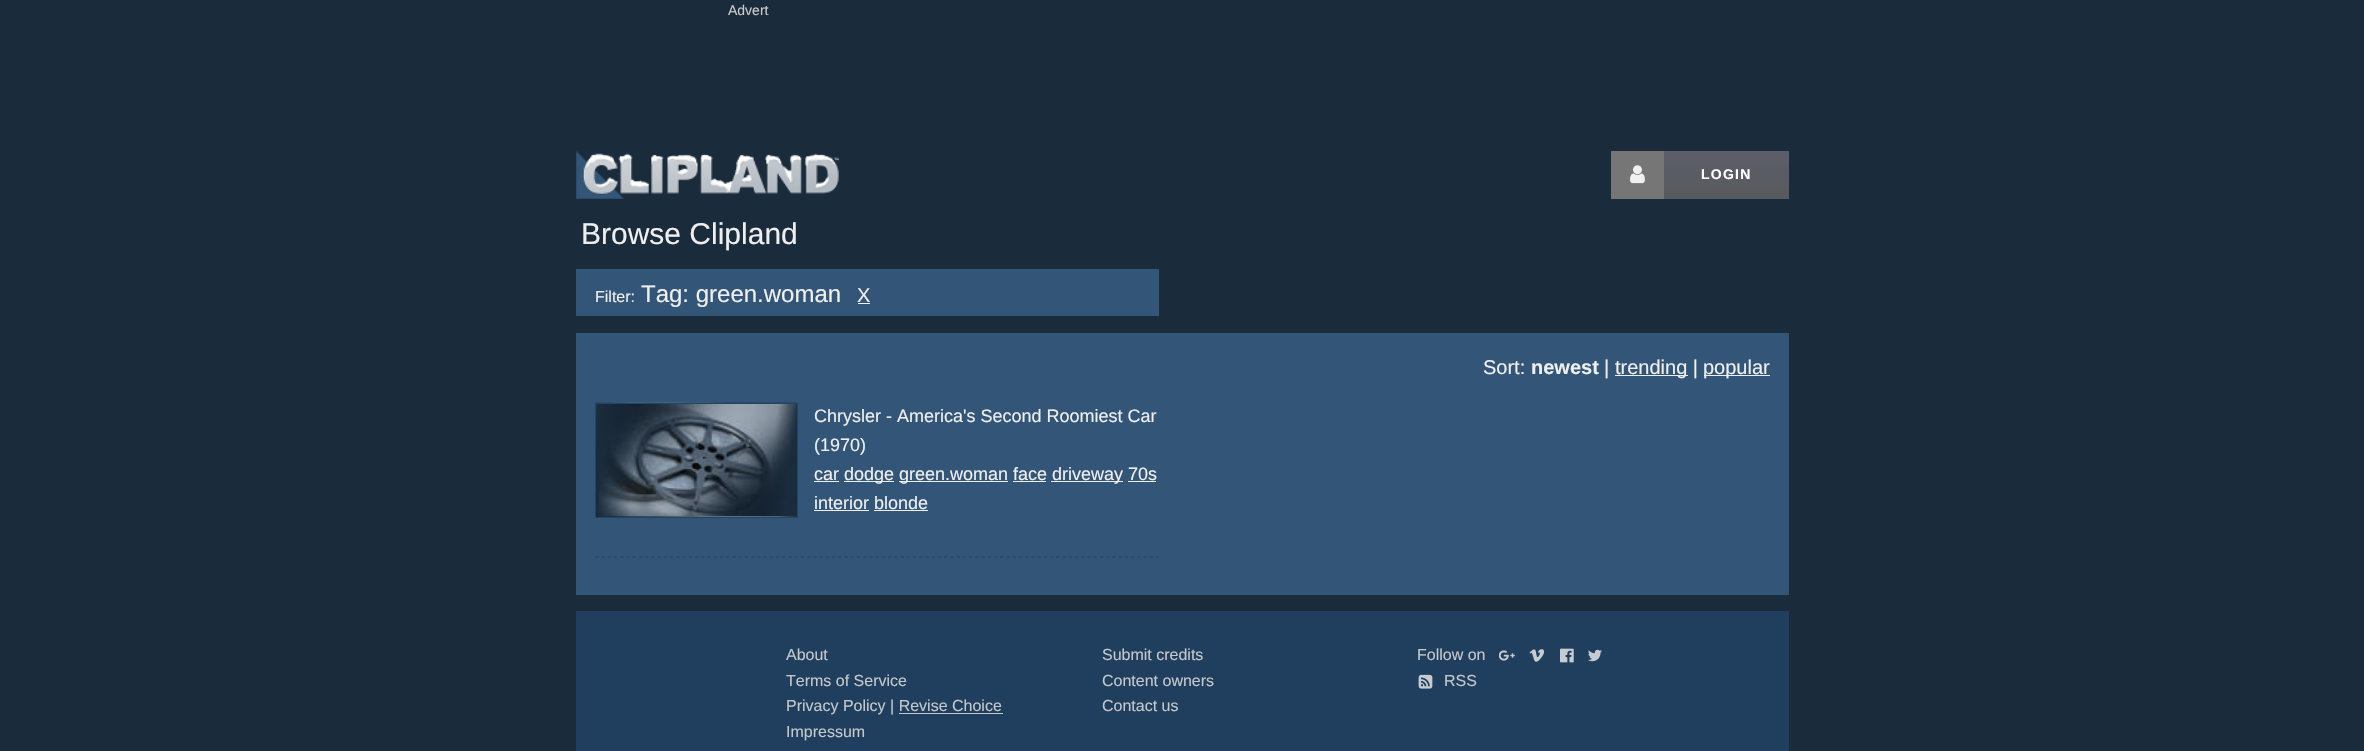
void draw(SkCanvas* c) {
SkPaint p;
p.setAntiAlias(true);
auto F=[&](const char* family, int weight, float size, bool italic = false){SkFontStyle style(weight, SkFontStyle::kNormal_Width,italic ? SkFontStyle::kItalic_Slant : SkFontStyle::kUpright_Slant);SkFont result(fontMgr->matchFamilyStyle(family, style), size);result.setSubpixel(true);return result;};
auto T=[&](const char* s, float x, float y, const SkFont& font){c->drawString(s, x, y, font, p);};
auto L=[&](const char* s, float x, float y, const SkFont& font, const SkPaint& ink, float letter, float word){std::vector<SkGlyphID> glyphs(font.countText(s, strlen(s), SkTextEncoding::kUTF8));std::vector<float> xs(glyphs.size());font.textToGlyphs(s, strlen(s), SkTextEncoding::kUTF8, glyphs);font.getXPos(glyphs, xs, x);float extra = 0;for (size_t i = 0; i < glyphs.size(); i++) {xs[i] += extra;extra += letter + word * (glyphs[i] == font.unicharToGlyph(' '));}c->drawTextBlob(SkTextBlob::MakeFromPosHGlyphs(glyphs, xs, y, font), 0, 0, ink);};
auto R=[&](float x, float y, float w, float h){c->drawRect(SkRect::MakeXYWH(x, y, w, h), p);};
auto I=[&](const char* path, float x, float y, float w, float h){auto image = SkImages::DeferredFromEncodedData(SkData::MakeFromFileName(path));c->drawImageRect(image, SkRect::MakeXYWH(x, y, w, h), SkSamplingOptions());};
auto P=[&](const char* data, bool evenOdd = false){SkPath result = *SkParsePath::FromSVGString(data);if (evenOdd) result.setFillType(SkPathFillType::kEvenOdd);return result;};
c->clear(0xff1a2b3c);
auto f1 = F("Liberation Sans",400,14);
p.setColor(0xffcccccc);
T("Advert",728,15,f1);
I("1.png",576,151,263,48);
p.setColor(0xff767676);
R(1611,151,53,48);
I("2.png",1630,165,15,19);
{
const SkColor colors[] = {0xff5c5d6a,0xff585b5d};
const float stops[] = {0,1};
const SkPoint ends[] = {{1726,151}, {1726,199}};
p.setShader(SkGradientShader::MakeLinear(ends, colors, stops, 2, SkTileMode::kClamp));
p.setAlpha(255);
}
R(1664,151,125,48);
auto f2 = F("Liberation Sans",700,14);
p.setShader(nullptr);
p.setColor(0xffffffff);
L("LOGIN",1701,179,f2,p,1.25,0);
auto f3 = F("Liberation Sans",400,30);
p.setColor(0xffefefef);
T("Browse Clipland",581,244,f3);
p.setColor(0xff335577);
R(576,269,583,47);
auto f4 = F("Liberation Sans",400,16);
p.setColor(0xffefefef);
T("Filter:",595,302,f4);
auto f5 = F("Liberation Sans",400,24);
T("Tag: green.woman",641,302,f5);
auto f6 = F("Liberation Sans",400,20);
T("X",857,302,f6);
R(858,303,12,1);
p.setColor(0xff335577);
R(576,333,1213,262);
p.setColor(0xffefefef);
T("Sort:",1483,374,f6);
auto f7 = F("Liberation Sans",700,20);
T("newest",1531,374,f7);
T("|",1604,374,f6);
R(1615,375,73,1);
T("trending |",1615,374,f6);
R(1704,375,66,1);
T("popular",1703,374,f6);
p.setStroke(true);
p.setStrokeWidth(1.2);
p.setColor(0xff224466);
p.setPathEffect(SkDashPathEffect::Make({{3.75f,2.48f}}, 0));
c->drawPath(P("M595 557h564"),p);
p.setPathEffect(nullptr);
I("3.png",595,402,203,115);
p.setStrokeWidth(1);
c->drawRect(SkRect::MakeXYWH(595.5,403.5,202,114),p);
auto f8 = F("Liberation Sans",400,18);
p.setStroke(false);
p.setColor(0xffefefef);
T("Chrysler - America's Second Roomiest Car",814,422,f8);
T("(1970)",814,451,f8);
T("car",814,480,f8);
R(814,481,25,1);
R(844,481,50,1);
T("dodge",844,480,f8);
R(899,481,109,1);
T("green.woman face",899,480,f8);
R(1051,481,72,1);
T("driveway 70s",1052,480,f8);
R(1013,481,33,1);
R(1128,481,28,1);
T("interior blonde",814,509,f8);
R(814,510,55,1);
R(874,510,54,1);
p.setColor(0xff203f5e);
R(576,611,1213,140);
p.setColor(0xffc4c8cb);
T("About",786,660,f4);
T("Terms of Service",786,686,f4);
T("Privacy Policy | Revise Choice",786,711,f4);
R(899,713,104,1);
T("Impressum",786,737,f4);
T("Submit credits",1102,660,f4);
T("Content owners",1102,686,f4);
T("Contact us",1102,711,f4);
T("Follow on",1417,660,f4);
I("4.png",1499,650,16,11);
I("5.png",1529,649,15,13);
I("6.png",1560,648,14,15);
I("7.png",1588,649,14,13);
I("8.png",1418,674,15,15);
T("RSS",1444,686,f4);
}
